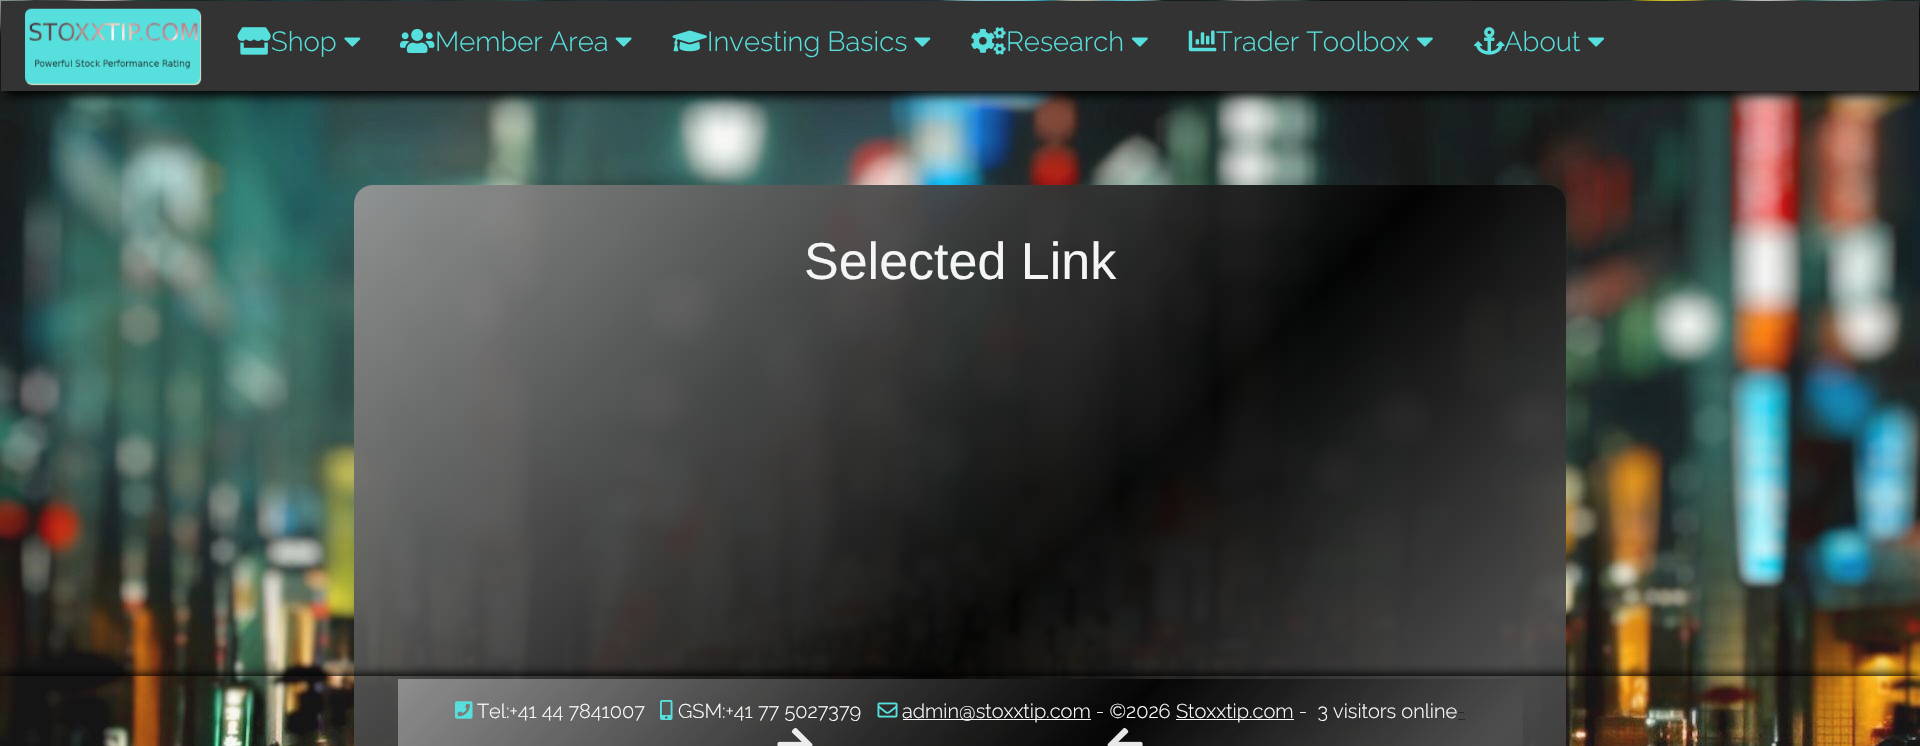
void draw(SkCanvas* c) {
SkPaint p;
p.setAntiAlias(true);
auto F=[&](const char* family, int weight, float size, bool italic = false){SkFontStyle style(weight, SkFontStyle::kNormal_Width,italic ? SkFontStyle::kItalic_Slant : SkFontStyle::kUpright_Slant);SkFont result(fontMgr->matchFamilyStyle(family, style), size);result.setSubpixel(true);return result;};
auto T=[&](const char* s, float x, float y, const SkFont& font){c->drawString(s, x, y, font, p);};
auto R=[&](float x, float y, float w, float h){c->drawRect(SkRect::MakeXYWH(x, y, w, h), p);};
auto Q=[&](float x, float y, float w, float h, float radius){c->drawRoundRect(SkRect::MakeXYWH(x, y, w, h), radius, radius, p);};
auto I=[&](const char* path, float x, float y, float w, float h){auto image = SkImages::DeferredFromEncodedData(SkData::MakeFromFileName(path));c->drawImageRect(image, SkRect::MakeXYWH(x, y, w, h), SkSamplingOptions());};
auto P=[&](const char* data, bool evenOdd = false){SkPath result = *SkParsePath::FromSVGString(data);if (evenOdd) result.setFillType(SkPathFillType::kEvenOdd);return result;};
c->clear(0xffffffff);
I("1.png",0,0,1920,746);
I("2.png",0,0,1920,746);
p.setColor(0xff000000);
p.setMaskFilter(SkMaskFilter::MakeBlur(kNormal_SkBlurStyle, 5));
c->drawRect(SkRect::MakeXYWH(6,6,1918,90),p);
p.setMaskFilter(nullptr);
p.setColor(0xff333333);
R(1,1,1918,90);
p.setColor(0xffd6ebd3);
p.setMaskFilter(SkMaskFilter::MakeBlur(kNormal_SkBlurStyle, .5));
c->drawRoundRect(SkRect::MakeXYWH(26,10,175,75),6,6,p);
p.setMaskFilter(nullptr);
I("3.png",25,8,175,76);
I("4.png",237,27,34,28);
auto f1 = F("Raleway",100,27.5);
p.setColor(0xff56dfdc);
T("Shop",271,51,f1);
I("5.png",344,37,17,10);
I("6.png",400,28,35,25);
T("Member Area",435,51,f1);
I("7.png",615,37,17,10);
I("8.png",672,30,35,22);
T("Investing Basics",707,51,f1);
I("5.png",914,37,17,10);
I("9.png",971,27,35,28);
T("Research",1006,51,f1);
I("10.png",1131,37,17,10);
I("11.png",1188,30,29,22);
T("Trader Toolbox",1216,51,f1);
I("10.png",1416,37,17,10);
I("12.png",1473,27,32,28);
T("About",1504,51,f1);
I("13.png",1588,37,16,10);
{
const SkColor colors[] = {0xf2959595,0xf20d0d0d,0xf2010101,0xf20a0a0a,0xf24e4e4e,0xf2383838,0xf21b1b1b};
const float stops[] = {0,.46,.5,.53,.76,.87,1};
const SkPoint ends[] = {{422,116}, {1498,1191}};
p.setShader(SkGradientShader::MakeLinear(ends, colors, stops, 7, SkTileMode::kClamp));
p.setAlpha(255);
}
Q(354,185,1212,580,19);
auto f2 = F("Liberation Sans",400,52);
p.setShader(nullptr);
p.setColor(0xfff5f5f5);
T("Selected Link",804,279,f2);
{
const SkColor colors[] = {0xe6959595,0xe60d0d0d,0xe6010101,0xe60a0a0a,0xe64e4e4e,0xe6383838,0xe61b1b1b};
const float stops[] = {0,.46,.5,.53,.76,.87,1};
const SkPoint ends[] = {{579,498}, {1341,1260}};
p.setShader(SkGradientShader::MakeLinear(ends, colors, stops, 7, SkTileMode::kClamp));
p.setAlpha(255);
}
R(398,679,1125,67);
I("14.png",777,728,36,18);
I("15.png",1107,728,36,18);
c->save();
c->clipPath(P("M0 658h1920v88h-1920zm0 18h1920v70h-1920z",true),true);
p.setShader(nullptr);
p.setColor(0xff000000);
p.setMaskFilter(SkMaskFilter::MakeBlur(kNormal_SkBlurStyle, 5));
c->drawRect(SkRect::MakeXYWH(-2,674,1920,70),p);
p.setMaskFilter(nullptr);
c->restore();
I("16.png",455,701,18,18);
auto f3 = F("Raleway",100,20);
p.setColor(0xffffffff);
T("Tel:+41 44 7841007",477,718,f3);
I("17.png",660,700,13,20);
T("GSM:+41 77 5027379",678,718,f3);
I("18.png",877,702,21,16);
R(903,719,188,1);
T("admin@stoxxtip.com - ©2026",902,718,f3);
R(1176,719,118,1);
T("Stoxxtip.com -  3 visitors online",1176,718,f3);
p.setColor(0xff252528);
T("-",1457,718,f3);
R(1458,719,7,1);
}
